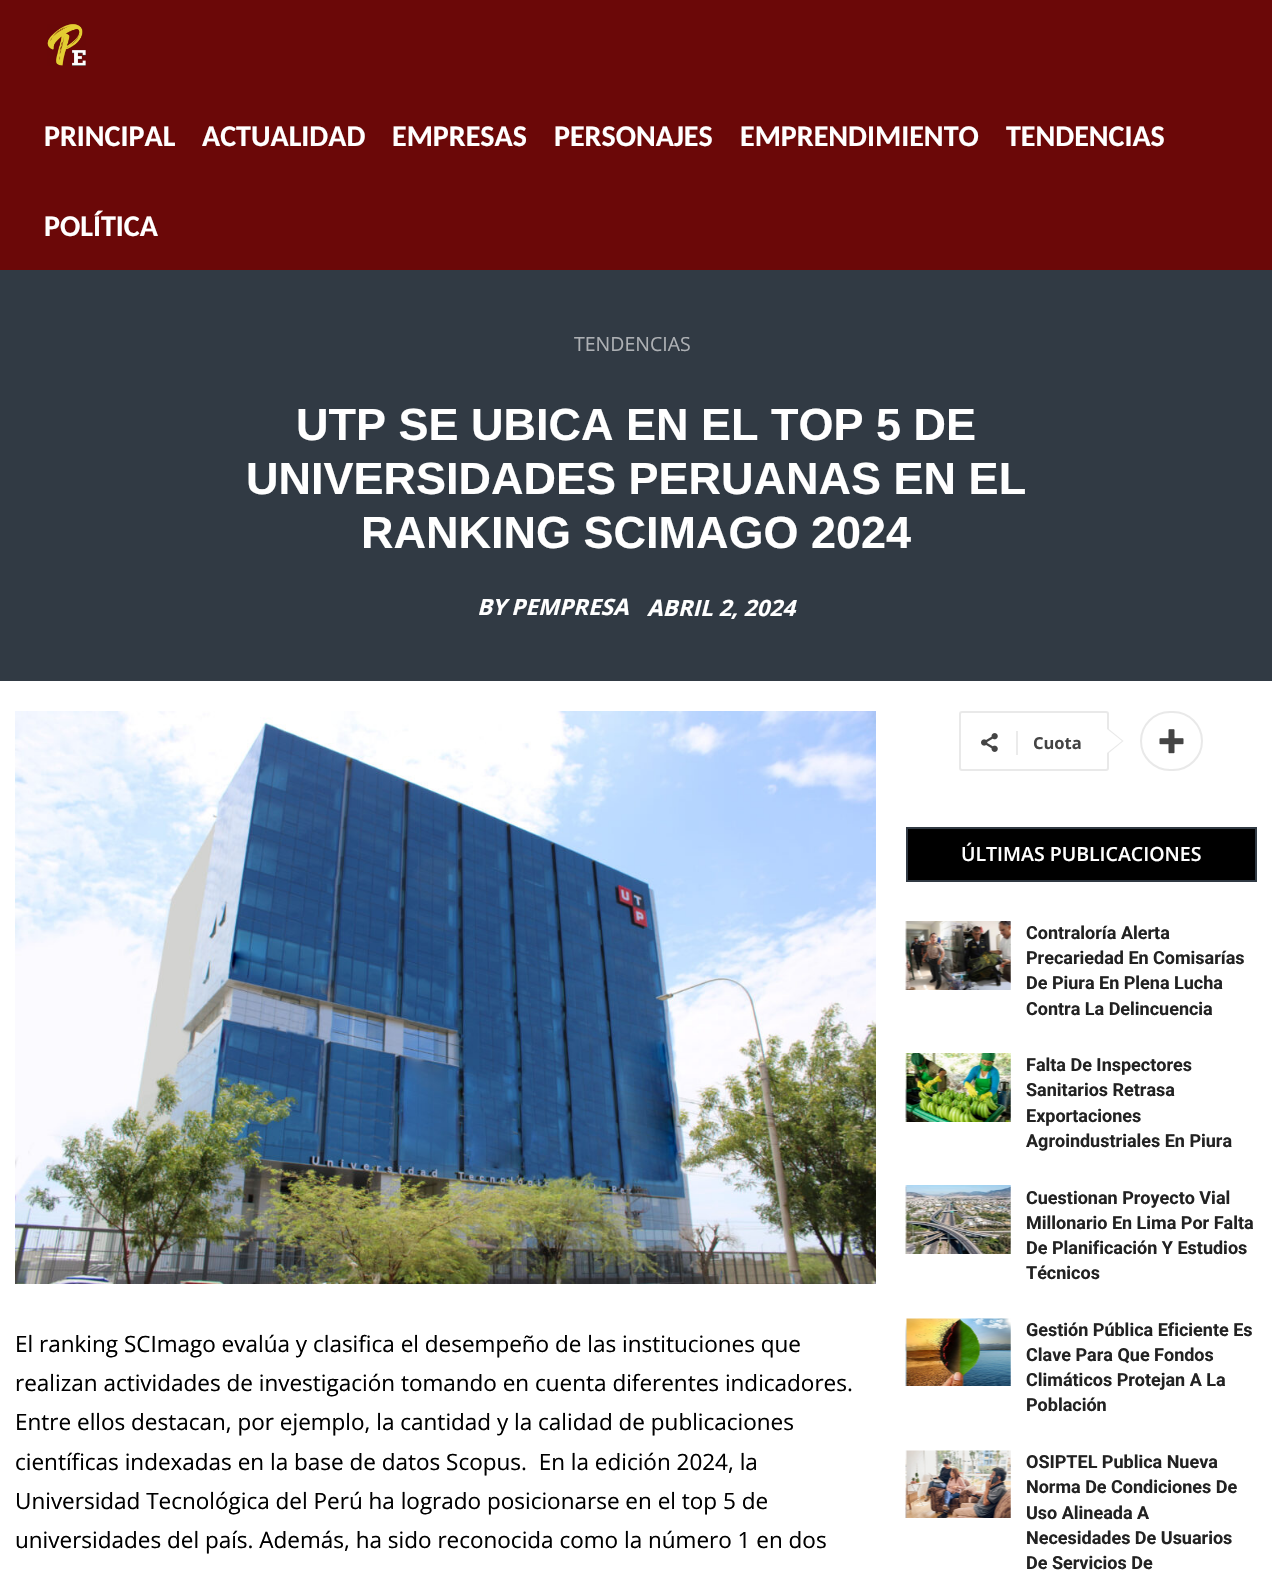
void draw(SkCanvas* c) {
SkPaint p;
p.setAntiAlias(true);
auto F=[&](const char* family, int weight, float size, bool italic = false){SkFontStyle style(weight, SkFontStyle::kNormal_Width,italic ? SkFontStyle::kItalic_Slant : SkFontStyle::kUpright_Slant);SkFont result(fontMgr->matchFamilyStyle(family, style), size);result.setSubpixel(true);return result;};
auto T=[&](const char* s, float x, float y, const SkFont& font){c->drawString(s, x, y, font, p);};
auto R=[&](float x, float y, float w, float h){c->drawRect(SkRect::MakeXYWH(x, y, w, h), p);};
auto I=[&](const char* path, float x, float y, float w, float h){auto image = SkImages::DeferredFromEncodedData(SkData::MakeFromFileName(path));c->drawImageRect(image, SkRect::MakeXYWH(x, y, w, h), SkSamplingOptions());};
auto P=[&](const char* data, bool evenOdd = false){SkPath result = *SkParsePath::FromSVGString(data);if (evenOdd) result.setFillType(SkPathFillType::kEvenOdd);return result;};
c->clear(0xffffffff);
p.setColor(0xff6b0808);
R(0,0,1272,270);
I("1.png",47,24,39,42);
auto f1 = F("Carlito",700,30);
p.setColor(0xffffffff);
T("PRINCIPAL",44,146,f1);
T("ACTUALIDAD",202,146,f1);
T("EMPRESAS",392,146,f1);
T("PERSONAJES",554,146,f1);
T("EMPRENDIMIENTO",740,146,f1);
T("TENDENCIAS",1006,146,f1);
T("POLÍTICA",44,236,f1);
p.setColor(0xff313a44);
R(0,270,1272,411);
auto f2 = F("Open Sans",400,19.5);
p.setColor(0xffadb0b4);
T("TENDENCIAS",574,351,f2);
auto f3 = F("Liberation Sans",700,45);
p.setColor(0xffffffff);
T("UTP SE UBICA EN EL TOP 5 DE",296,440,f3);
T("UNIVERSIDADES PERUANAS EN EL",246,494,f3);
T("RANKING SCIMAGO 2024",361,548,f3);
auto f4 = F("Open Sans",700,22.5,true);
T("BY",477,615,f4);
T("PEMPRESA",511,615,f4);
T("ABRIL 2, 2024",647,616,f4);
I("2.png",15,711,861,573);
auto f5 = F("Open Sans",400,22.5);
p.setColor(0xff000000);
T("El ranking SCImago evalúa y clasifica el desempeño de las instituciones que",15,1352,f5);
T("realizan actividades de investigación tomando en cuenta diferentes indicadores.",15,1391,f5);
T("Entre ellos destacan, por ejemplo, la cantidad y la calidad de publicaciones",15,1430,f5);
T("científicas indexadas en la base de datos Scopus.  En la edición 2024, la",15,1470,f5);
T("Universidad Tecnológica del Perú ha logrado posicionarse en el top 5 de",15,1509,f5);
T("universidades del país. Además, ha sido reconocida como la número 1 en dos",15,1548,f5);
p.setStroke(true);
p.setStrokeWidth(2);
p.setColor(0xffe9e9e9);
c->drawRoundRect(SkRect::MakeXYWH(960,712,148,58),2,2,p);
p.setStroke(false);
c->drawPath(P("M1107 754.5v-27l16.5 13.5z"),p);
I("3.png",981,733,17,19);
p.setColor(0xffebebeb);
R(1016,731,2,24);
auto f6 = F("Open Sans",700,16.5);
p.setColor(0xff444444);
T("Cuota",1033,749,f6);
p.setColor(0xffffffff);
c->drawPath(P("M1107 753v-24l15 12z"),p);
p.setStroke(true);
p.setColor(0xffe9e9e9);
c->drawRoundRect(SkRect::MakeXYWH(1141,712,61,58),29,29,p);
I("4.png",1159,729,25,25);
p.setStroke(false);
p.setColor(0xff000000);
c->drawRect(SkRect::MakeXYWH(907,828,349,53),p);
p.setStroke(true);
p.setColor(0xff313a44);
c->drawRect(SkRect::MakeXYWH(907,828,349,53),p);
auto f7 = F("Open Sans",600,19.5);
p.setStroke(false);
p.setColor(0xffffffff);
T("ÚLTIMAS PUBLICACIONES",961,861,f7);
I("5.png",905,921,106,69);
auto f8 = F("Roboto",700,18);
p.setColor(0xff222222);
T("Contraloría Alerta",1026,939,f8);
T("Precariedad En Comisarías",1026,964,f8);
T("De Piura En Plena Lucha",1026,989,f8);
T("Contra La Delincuencia",1026,1015,f8);
I("6.png",905,1053,106,69);
T("Falta De Inspectores",1026,1071,f8);
T("Sanitarios Retrasa",1026,1096,f8);
T("Exportaciones",1026,1122,f8);
T("Agroindustriales En Piura",1026,1147,f8);
I("7.png",905,1185,106,69);
T("Cuestionan Proyecto Vial",1026,1204,f8);
T("Millonario En Lima Por Falta",1026,1229,f8);
T("De Planificación Y Estudios",1026,1254,f8);
T("Técnicos",1026,1279,f8);
I("8.png",905,1318,106,68);
T("Gestión Pública Eficiente Es",1026,1336,f8);
T("Clave Para Que Fondos",1026,1361,f8);
T("Climáticos Protejan A La",1026,1386,f8);
T("Población",1026,1411,f8);
I("9.png",905,1450,106,68);
T("OSIPTEL Publica Nueva",1026,1468,f8);
T("Norma De Condiciones De",1026,1493,f8);
T("Uso Alineada A",1026,1519,f8);
T("Necesidades De Usuarios",1026,1544,f8);
T("De Servicios De",1026,1569,f8);
}
